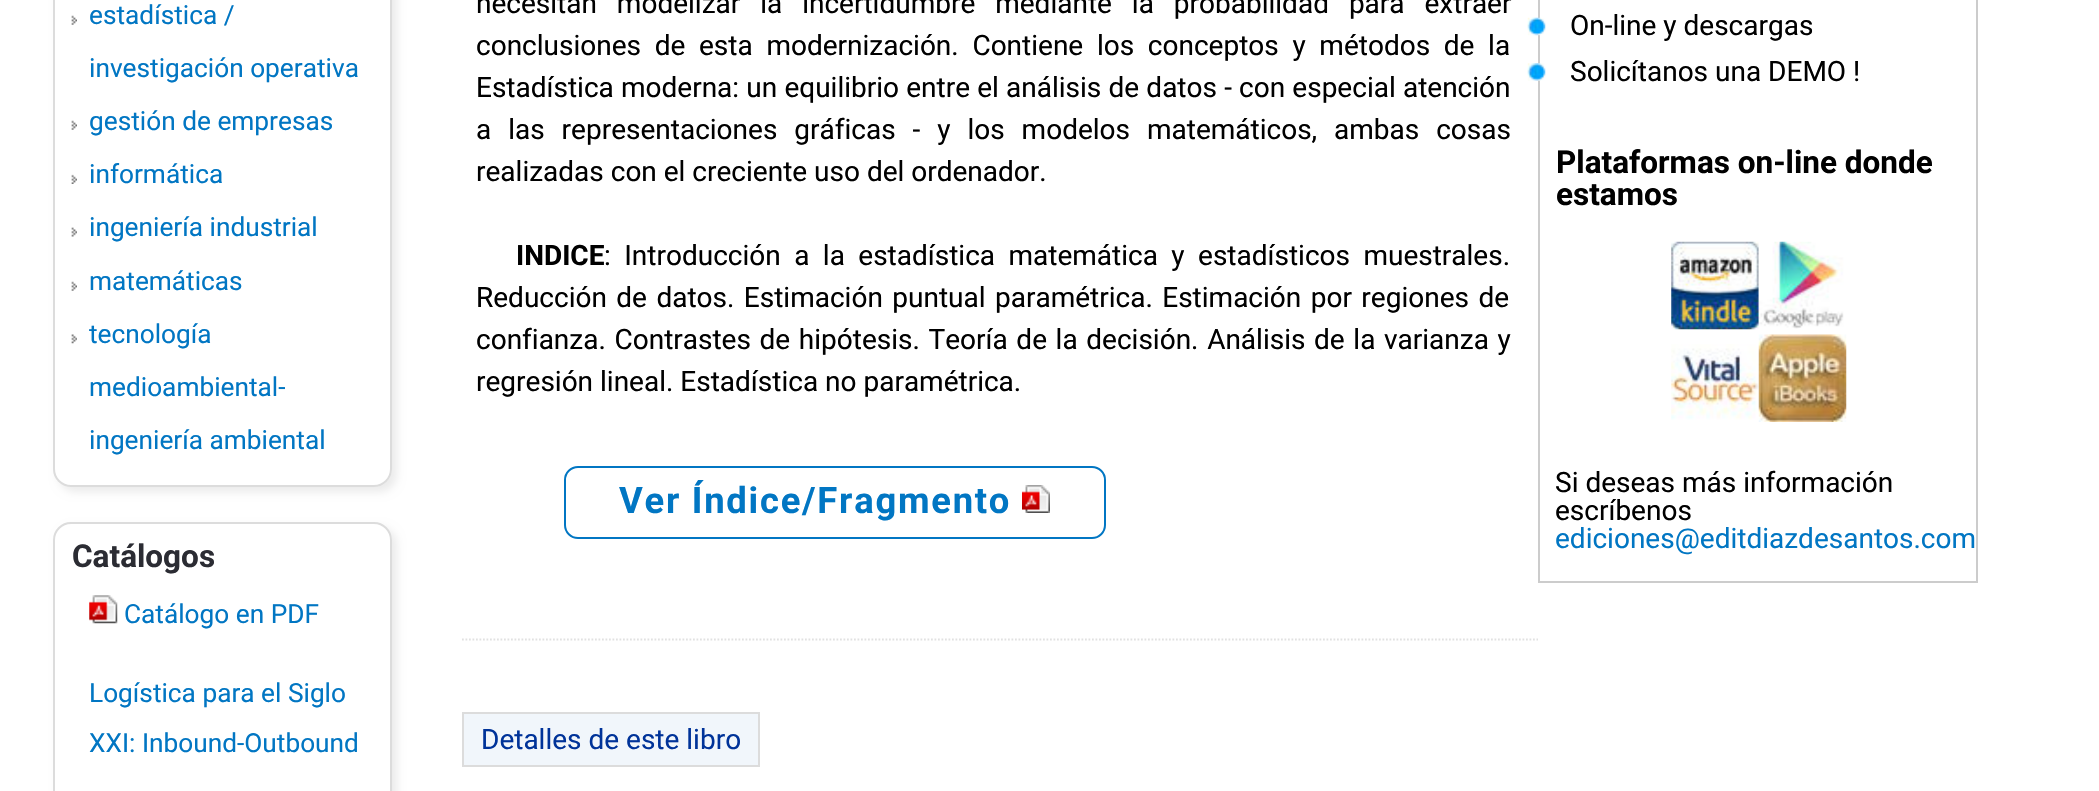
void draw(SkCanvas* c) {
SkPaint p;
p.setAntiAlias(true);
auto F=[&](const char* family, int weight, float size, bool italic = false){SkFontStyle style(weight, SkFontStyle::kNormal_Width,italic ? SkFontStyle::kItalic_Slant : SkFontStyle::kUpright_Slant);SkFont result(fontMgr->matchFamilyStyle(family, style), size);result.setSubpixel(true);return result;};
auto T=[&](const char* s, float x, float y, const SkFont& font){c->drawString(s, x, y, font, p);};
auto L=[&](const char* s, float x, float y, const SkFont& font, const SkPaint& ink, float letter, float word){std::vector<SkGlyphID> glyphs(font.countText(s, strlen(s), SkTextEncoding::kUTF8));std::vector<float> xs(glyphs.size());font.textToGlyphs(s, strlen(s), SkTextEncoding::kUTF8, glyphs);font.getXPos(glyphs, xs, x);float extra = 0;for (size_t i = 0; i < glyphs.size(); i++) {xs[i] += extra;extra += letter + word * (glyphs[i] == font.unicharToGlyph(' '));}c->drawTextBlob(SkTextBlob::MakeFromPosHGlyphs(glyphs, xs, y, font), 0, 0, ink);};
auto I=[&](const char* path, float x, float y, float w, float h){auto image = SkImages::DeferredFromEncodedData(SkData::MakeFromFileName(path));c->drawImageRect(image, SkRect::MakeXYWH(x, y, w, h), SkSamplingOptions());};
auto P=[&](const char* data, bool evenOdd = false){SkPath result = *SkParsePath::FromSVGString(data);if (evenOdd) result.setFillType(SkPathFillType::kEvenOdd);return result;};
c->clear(0xffffffff);
c->save();
c->clipPath(P("M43 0h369v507h-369zm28-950h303c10 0 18 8 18 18v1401c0 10-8 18-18 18h-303c-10 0-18-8-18-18v-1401c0-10 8-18 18-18z",true),true);
p.setColor(0x14000000);
p.setMaskFilter(SkMaskFilter::MakeBlur(kNormal_SkBlurStyle, 4.5));
c->drawRoundRect(SkRect::MakeXYWH(58,-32,339,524),18,18,p);
p.setMaskFilter(nullptr);
c->restore();
p.setStroke(true);
p.setStrokeWidth(2);
p.setColor(0xffdcdcdc);
c->drawRoundRect(SkRect::MakeXYWH(54,-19,337,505),17,17,p);
I("1.png",71,15,6,10);
auto f1 = F("Roboto",400,26.25);
p.setStroke(false);
p.setColor(0xff0176c3);
T("estadística /",89,24,f1);
T("investigación operativa",89,77,f1);
I("1.png",71,120,6,10);
T("gestión de empresas",89,130,f1);
I("2.png",71,174,6,10);
T("informática",89,183,f1);
I("3.png",71,227,6,10);
T("ingeniería industrial",89,236,f1);
I("1.png",71,281,6,10);
T("matemáticas",89,290,f1);
I("4.png",71,334,6,10);
T("tecnología",89,343,f1);
T("medioambiental-",89,396,f1);
T("ingeniería ambiental",89,449,f1);
c->save();
c->clipPath(P("M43 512h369v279h-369zm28 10h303c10 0 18 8 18 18v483c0 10-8 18-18 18h-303c-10 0-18-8-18-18v-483c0-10 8-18 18-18z",true),true);
p.setColor(0x14000000);
p.setMaskFilter(SkMaskFilter::MakeBlur(kNormal_SkBlurStyle, 4.5));
c->drawRoundRect(SkRect::MakeXYWH(58,527,339,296),18,18,p);
p.setMaskFilter(nullptr);
c->restore();
p.setStroke(true);
p.setColor(0xffdcdcdc);
c->drawRoundRect(SkRect::MakeXYWH(54,523,337,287),17,17,p);
auto f2 = F("Roboto",700,31.5);
p.setStroke(false);
p.setColor(0xff2b2c33);
T("Catálogos",72,567,f2);
I("5.png",89,595,29,29);
p.setColor(0xff0176c3);
T("Catálogo en PDF",124,623,f1);
T("Logística para el Siglo",89,702,f1);
T("XXI: Inbound-Outbound",89,752,f1);
auto f3 = F("Roboto",400,28);
p.setColor(0xff000000);
L("necesitan modelizar la incertidumbre mediante la probabilidad para extraer",476,13,f3,p,0,13);
L("conclusiones de esta modernización. Contiene los conceptos y métodos de la",476,55,f3,p,0,6.75);
L("Estadística moderna: un equilibrio entre el análisis de datos - con especial atención",476,97,f3,p,0,.25);
L("a las representaciones gráficas - y los modelos matemáticos, ambas cosas",476,139,f3,p,0,10);
T("realizadas con el creciente uso del ordenador.",476,181,f3);
auto f4 = F("Roboto",700,28);
T("INDICE",516,265,f4);
L(": Introducción a la estadística matemática y estadísticos muestrales.",604,265,f3,p,0,6.5);
L("Reducción de datos. Estimación puntual paramétrica. Estimación por regiones de",476,307,f3,p,0,2.5);
L("confianza. Contrastes de hipótesis. Teoría de la decisión. Análisis de la varianza y",476,349,f3,p,0,1.7);
T("regresión lineal. Estadística no paramétrica.",476,391,f3);
p.setStroke(true);
p.setColor(0xff0176c3);
c->drawRoundRect(SkRect::MakeXYWH(565,467,540,71),13,13,p);
auto f5 = F("Roboto",700,36.4);
p.setStroke(false);
L("Ver Índice/Fragmento",619,513,f5,p,1.75,0);
I("6.png",1022,485,28,28);
p.setStroke(true);
p.setStrokeWidth(1.8);
p.setColor(0xffe1e1e1);
p.setPathEffect(SkDashPathEffect::Make({{1.75f,1.75f}}, 0));
c->drawPath(P("M462 639.5h1076"),p);
p.setPathEffect(nullptr);
p.setStroke(false);
p.setColor(0xfff1f6fb);
c->drawRect(SkRect::MakeXYWH(463,713,296,53),p);
p.setStroke(true);
p.setStrokeWidth(2);
p.setColor(0xffdcdcdc);
c->drawRect(SkRect::MakeXYWH(463,713,296,53),p);
p.setStroke(false);
p.setColor(0xff003399);
T("Detalles de este libro",481,749,f3);
p.setStroke(true);
p.setColor(0xffcccccc);
c->drawRect(SkRect::MakeXYWH(1539,-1,438,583),p);
I("7.png",1527,17,19,19);
p.setStroke(false);
p.setColor(0xff000000);
T("On-line y descargas",1570,35,f3);
I("8.png",1527,63,19,18);
T("Solicítanos una DEMO !",1570,81,f3);
T("Plataformas on-line donde",1556,173,f2);
T("estamos",1556,205,f2);
I("9.png",1671,241,88,89);
I("10.png",1758,241,86,88);
I("11.png",1671,344,88,76);
I("12.png",1758,334,89,88);
T("Si deseas más información",1555,492,f3);
T("escríbenos",1555,520,f3);
p.setColor(0xff0176c3);
T("ediciones@editdiazdesantos.com",1555,548,f3);
}
